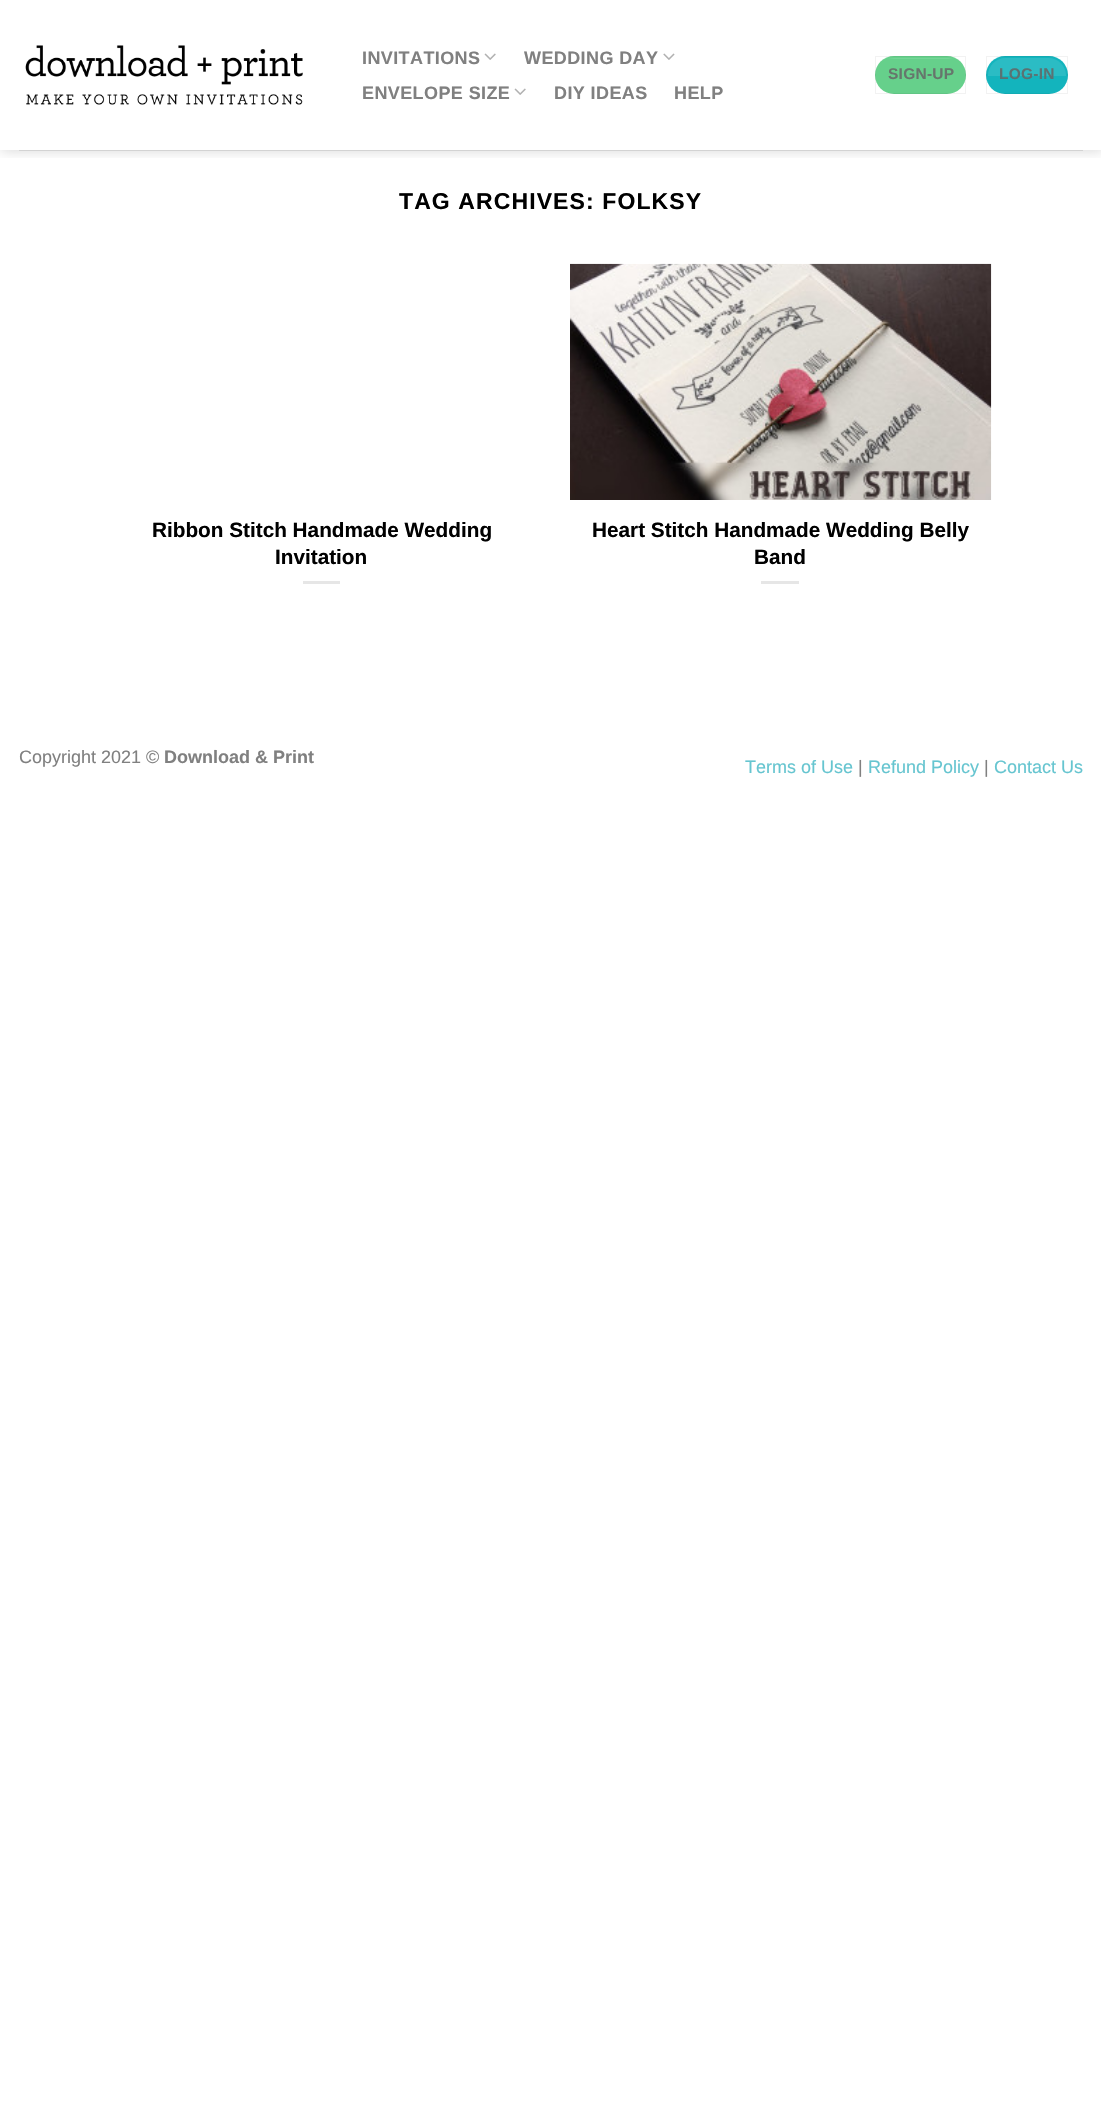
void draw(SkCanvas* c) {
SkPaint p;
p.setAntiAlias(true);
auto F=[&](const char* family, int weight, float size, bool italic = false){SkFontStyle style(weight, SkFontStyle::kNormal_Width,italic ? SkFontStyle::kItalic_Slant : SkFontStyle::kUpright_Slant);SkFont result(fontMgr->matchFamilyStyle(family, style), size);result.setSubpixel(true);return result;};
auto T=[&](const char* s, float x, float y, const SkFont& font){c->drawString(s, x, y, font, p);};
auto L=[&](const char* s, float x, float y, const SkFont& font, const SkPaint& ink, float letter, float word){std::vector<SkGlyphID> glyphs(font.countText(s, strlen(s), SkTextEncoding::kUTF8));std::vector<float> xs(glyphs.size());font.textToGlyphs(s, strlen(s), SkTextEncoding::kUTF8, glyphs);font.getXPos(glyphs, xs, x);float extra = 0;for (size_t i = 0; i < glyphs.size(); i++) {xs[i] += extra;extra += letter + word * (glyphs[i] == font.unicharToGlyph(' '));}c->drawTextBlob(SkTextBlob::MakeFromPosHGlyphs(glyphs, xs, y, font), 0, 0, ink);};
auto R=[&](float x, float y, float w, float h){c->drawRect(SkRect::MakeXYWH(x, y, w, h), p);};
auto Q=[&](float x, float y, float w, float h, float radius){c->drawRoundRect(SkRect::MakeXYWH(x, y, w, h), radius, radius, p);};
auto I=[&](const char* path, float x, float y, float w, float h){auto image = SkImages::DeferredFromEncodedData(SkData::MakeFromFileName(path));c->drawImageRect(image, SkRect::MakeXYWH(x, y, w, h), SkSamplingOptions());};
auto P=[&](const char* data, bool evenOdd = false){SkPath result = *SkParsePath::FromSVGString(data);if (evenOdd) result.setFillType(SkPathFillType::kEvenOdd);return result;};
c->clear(0xffffffff);
c->save();
c->clipRect(SkRect::MakeXYWH(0,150,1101,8));
p.setColor(0x26000000);
p.setMaskFilter(SkMaskFilter::MakeBlur(kNormal_SkBlurStyle, 6));
c->drawRect(SkRect::MakeXYWH(1,1,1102,150),p);
p.setMaskFilter(nullptr);
c->restore();
I("1.png",25,45,278,60);
auto f1 = F("Liberation Sans",700,18);
p.setColor(0xff808080);
L("INVITATIONS",362,64,f1,p,.4,0);
I("2.png",484,53,12,7);
L("WEDDING DAY",524,64,f1,p,.4,0);
I("3.png",663,53,12,7);
L("ENVELOPE SIZE",362,99,f1,p,.4,0);
I("2.png",514,88,12,7);
L("DIY IDEAS",554,99,f1,p,.4,0);
L("HELP",674,99,f1,p,.4,0);
p.setColor(0xff66d08b);
Q(875,56,91,38,19);
p.setStroke(true);
p.setStrokeWidth(1);
p.setColor(0x0d000000);
c->drawRect(SkRect::MakeXYWH(875.5,56.5,90,37),p);
p.setStroke(false);
p.setColor(0xff75d597);
c->drawPath(P("M894 58l-6 1h65l-5-1z"),p);
auto f2 = F("Liberation Sans",700,15.5);
p.setColor(0xff66766c);
L("SIGN-UP",888,79,f2,p,.25,0);
p.setColor(0xff13b4bd);
Q(986,56,82,38,19);
p.setStroke(true);
p.setColor(0x0d000000);
c->drawRect(SkRect::MakeXYWH(986.5,56.5,81,37),p);
p.setStroke(false);
p.setColor(0x1affffff);
c->drawPath(P("M1005.5 58h43c9.5 0 17.5 8 17.5 17.5v.5h-78v-.5c0-9.5 8-17.5 17.5-17.5z"),p);
p.setColor(0xff5a7273);
L("LOG-IN",999,79,f2,p,.25,0);
p.setColor(0xffd3d3d3);
R(19,150,1064,1);
auto f3 = F("Liberation Sans",700,23);
p.setColor(0xff000000);
L("TAG ARCHIVES: FOLKSY",399,209,f3,p,1.1,0);
auto f4 = F("Liberation Sans",700,20.75);
T("Ribbon Stitch Handmade Wedding",152,537,f4);
T("Invitation",275,564,f4);
p.setColor(0xffe6e6e6);
R(303,581,37,3);
I("4.png",570,263,422,237);
p.setColor(0xff000000);
T("Heart Stitch Handmade Wedding Belly",592,537,f4);
T("Band",754,564,f4);
p.setColor(0xffe6e6e6);
R(761,581,38,3);
auto f5 = F("Liberation Sans",400,18);
p.setColor(0xff808080);
T("Copyright 2021 ©",19,763,f5);
T("Download & Print",164,763,f1);
p.setColor(0xff66c5d0);
T("Terms of Use",745,773,f5);
p.setColor(0xff808080);
T("|",858,773,f5);
p.setColor(0xff66c5d0);
T("Refund Policy",868,773,f5);
p.setColor(0xff808080);
T("|",984,773,f5);
p.setColor(0xff66c5d0);
T("Contact Us",994,773,f5);
}
